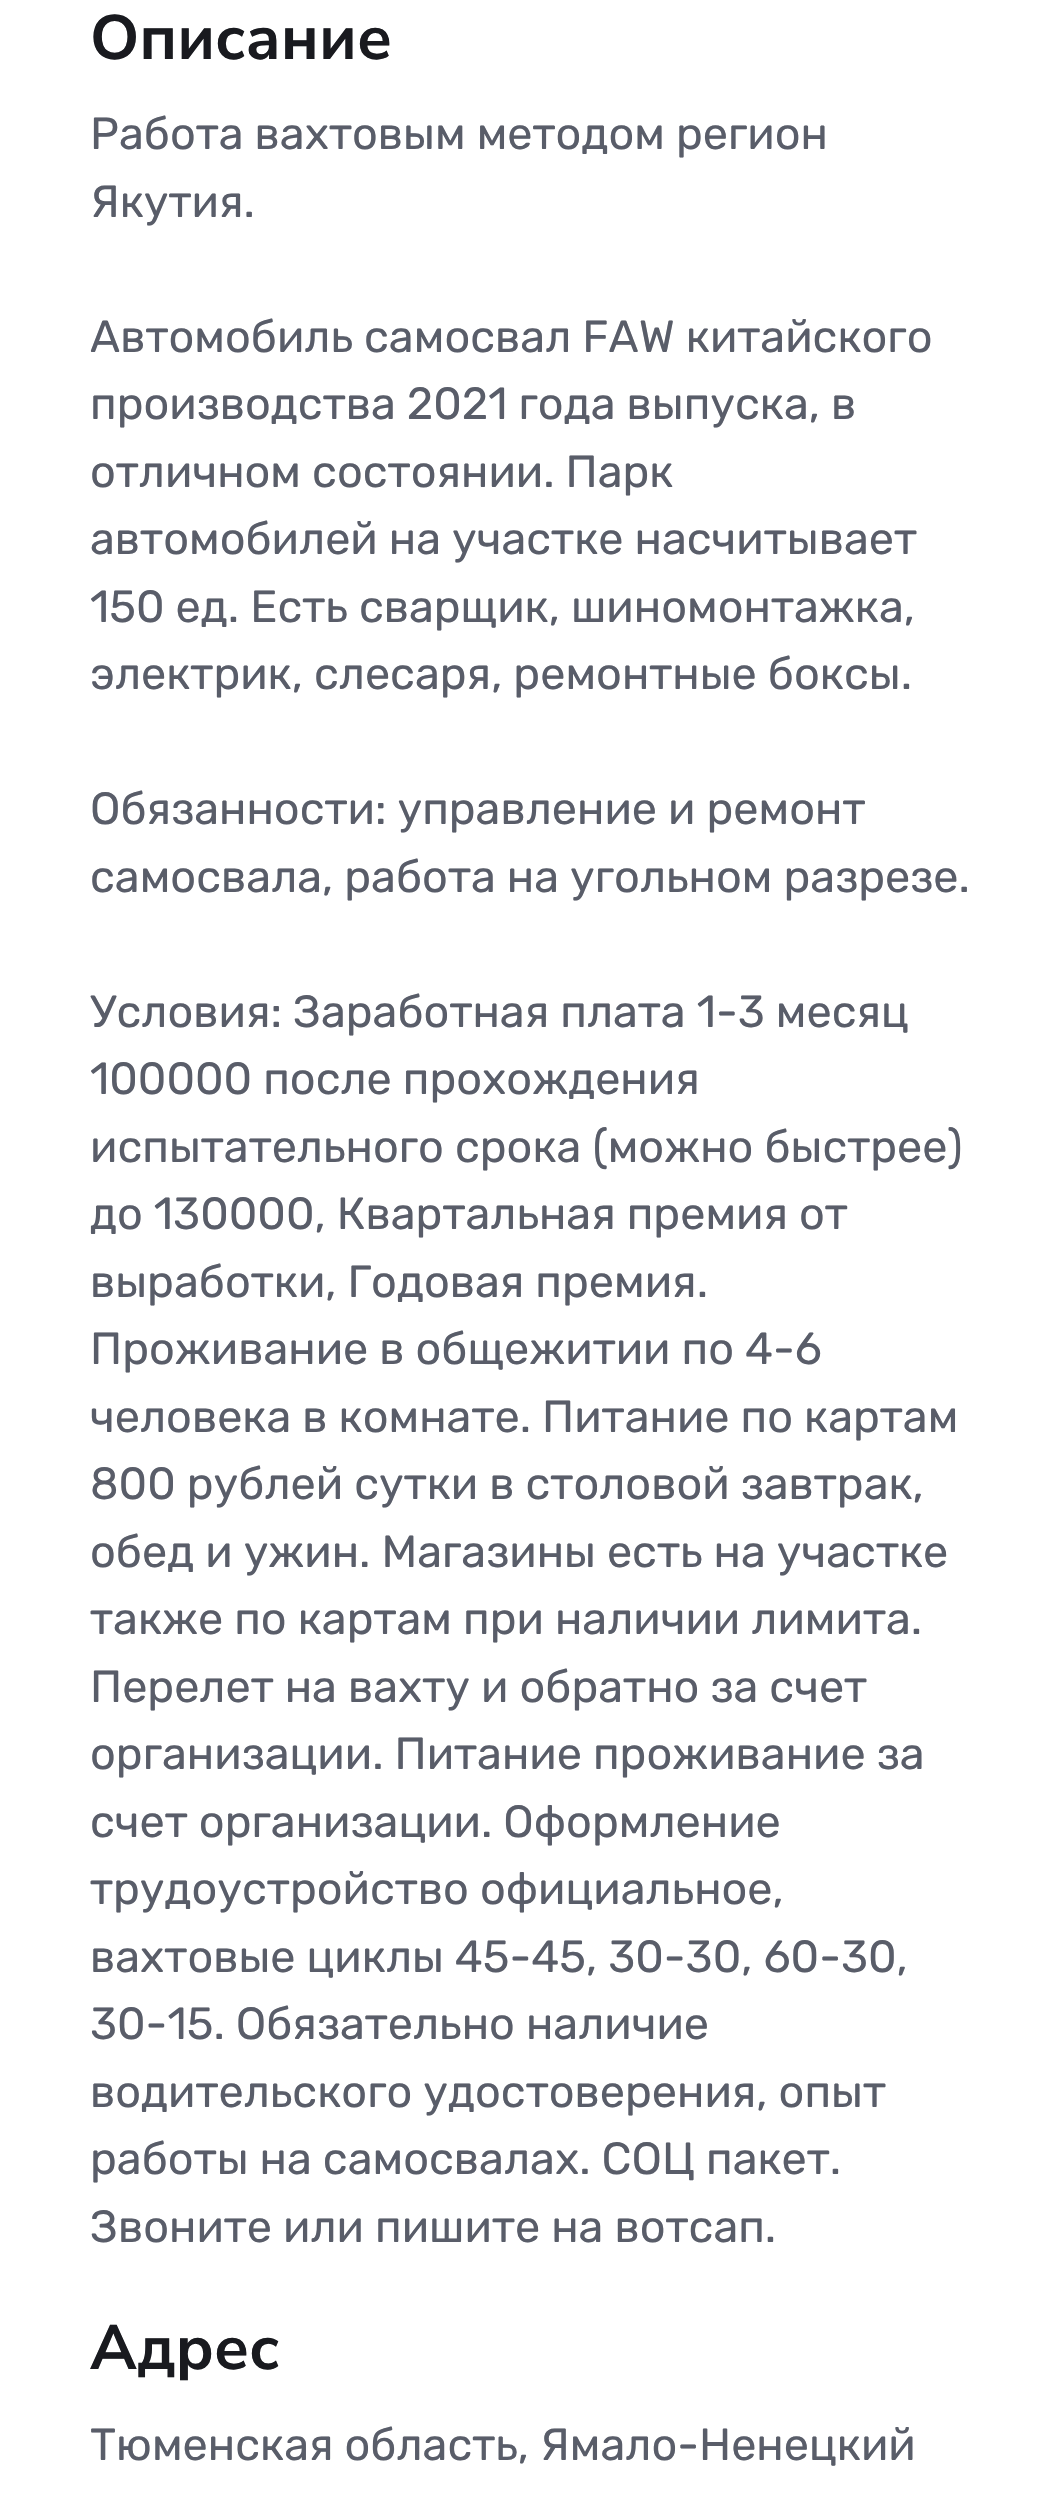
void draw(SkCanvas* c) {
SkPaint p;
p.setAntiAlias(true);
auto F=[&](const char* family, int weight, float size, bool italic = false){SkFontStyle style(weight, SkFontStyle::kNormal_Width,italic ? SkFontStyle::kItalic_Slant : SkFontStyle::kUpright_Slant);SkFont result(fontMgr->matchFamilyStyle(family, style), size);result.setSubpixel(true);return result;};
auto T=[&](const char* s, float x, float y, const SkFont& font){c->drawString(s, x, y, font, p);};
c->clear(0xffffffff);
auto f1 = F("Nunito Sans",700,62.75);
p.setColor(0xff191a1f);
T("Описание",90,59,f1);
auto f2 = F("Rubik",400,45);
p.setColor(0xff595d69);
T("Работа вахтовым методом регион",90,149,f2);
T("Якутия.",90,217,f2);
T("Автомобиль самосвал FAW китайского",90,352,f2);
T("производства 2021 года выпуска, в",90,419,f2);
T("отличном состоянии. Парк",90,487,f2);
T("автомобилей на участке насчитывает",90,554,f2);
T("150 ед. Есть сварщик, шиномонтажка,",90,622,f2);
T("электрик, слесаря, ремонтные боксы.",90,689,f2);
T("Обязанности: управление и ремонт",90,824,f2);
T("самосвала, работа на угольном разрезе.",90,892,f2);
T("Условия: Заработная плата 1-3 месяц",90,1027,f2);
T("100000 после прохождения",90,1094,f2);
T("испытательного срока (можно быстрее)",90,1162,f2);
T("до 130000, Квартальная премия от",90,1229,f2);
T("выработки, Годовая премия.",90,1297,f2);
T("Проживание в общежитии по 4-6",90,1364,f2);
T("человека в комнате. Питание по картам",90,1432,f2);
T("800 рублей сутки в столовой завтрак,",90,1499,f2);
T("обед и ужин. Магазины есть на участке",90,1567,f2);
T("также по картам при наличии лимита.",90,1634,f2);
T("Перелет на вахту и обратно за счет",90,1702,f2);
T("организации. Питание проживание за",90,1769,f2);
T("счет организации. Оформление",90,1837,f2);
T("трудоустройство официальное,",90,1904,f2);
T("вахтовые циклы 45-45, 30-30, 60-30,",90,1972,f2);
T("30-15. Обязательно наличие",90,2039,f2);
T("водительского удостоверения, опыт",90,2107,f2);
T("работы на самосвалах. СОЦ пакет.",90,2174,f2);
T("Звоните или пишите на вотсап.",90,2242,f2);
p.setColor(0xff191a1f);
T("Адрес",90,2369,f1);
p.setColor(0xff595d69);
T("Тюменская область, Ямало-Ненецкий",90,2460,f2);
}
